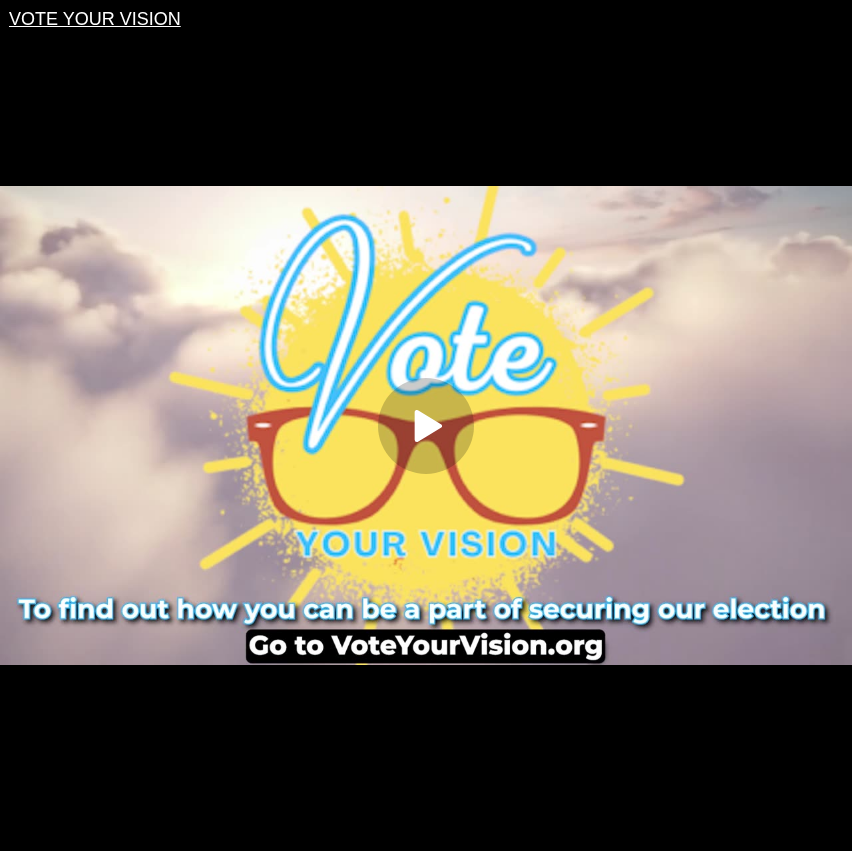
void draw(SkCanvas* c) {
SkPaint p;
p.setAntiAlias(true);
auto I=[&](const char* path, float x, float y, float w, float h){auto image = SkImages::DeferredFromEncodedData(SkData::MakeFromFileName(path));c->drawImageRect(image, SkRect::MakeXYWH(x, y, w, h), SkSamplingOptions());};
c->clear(0xffffffff);
I("1.png",0,0,852,851);
}
